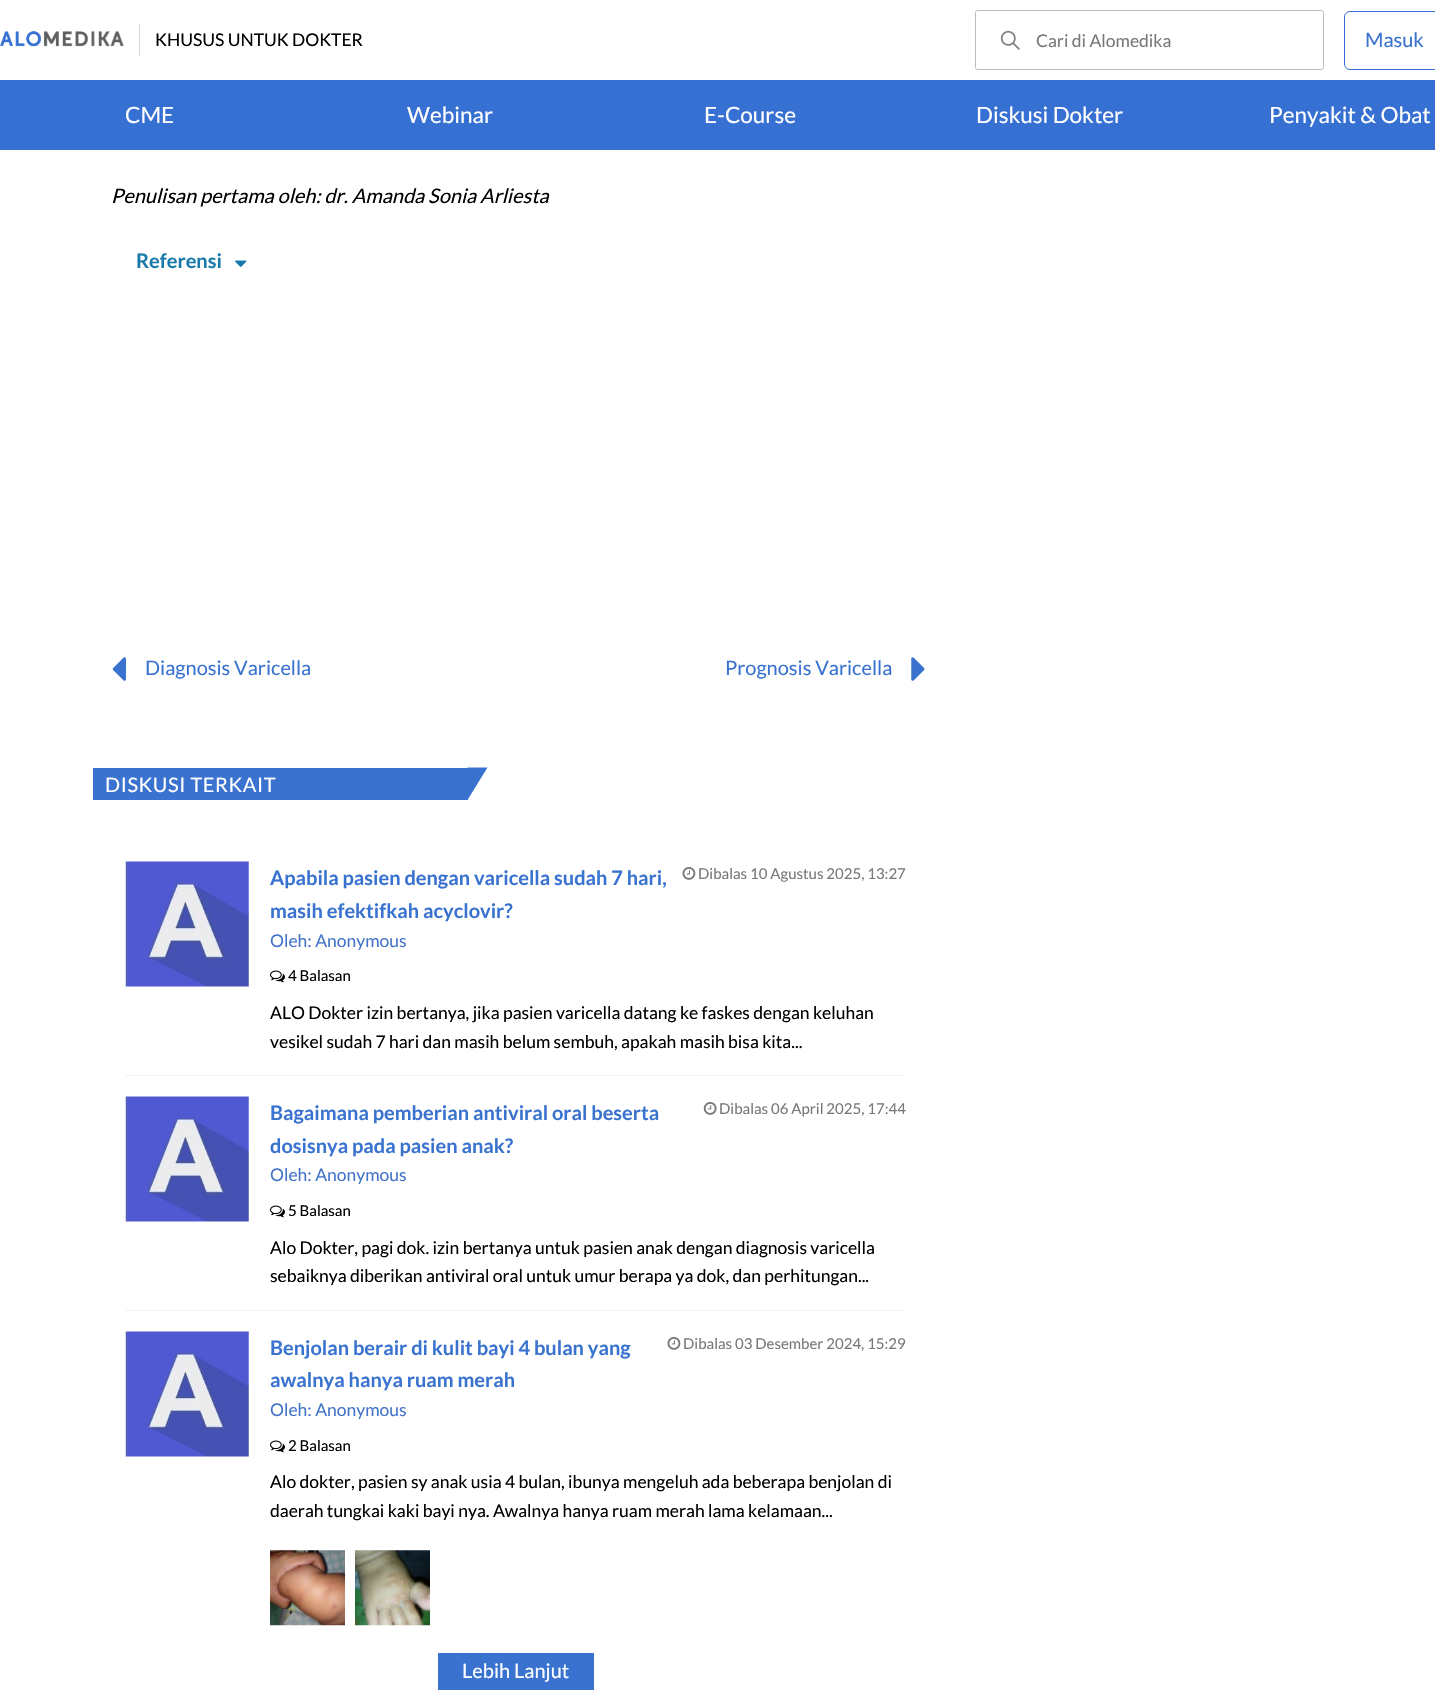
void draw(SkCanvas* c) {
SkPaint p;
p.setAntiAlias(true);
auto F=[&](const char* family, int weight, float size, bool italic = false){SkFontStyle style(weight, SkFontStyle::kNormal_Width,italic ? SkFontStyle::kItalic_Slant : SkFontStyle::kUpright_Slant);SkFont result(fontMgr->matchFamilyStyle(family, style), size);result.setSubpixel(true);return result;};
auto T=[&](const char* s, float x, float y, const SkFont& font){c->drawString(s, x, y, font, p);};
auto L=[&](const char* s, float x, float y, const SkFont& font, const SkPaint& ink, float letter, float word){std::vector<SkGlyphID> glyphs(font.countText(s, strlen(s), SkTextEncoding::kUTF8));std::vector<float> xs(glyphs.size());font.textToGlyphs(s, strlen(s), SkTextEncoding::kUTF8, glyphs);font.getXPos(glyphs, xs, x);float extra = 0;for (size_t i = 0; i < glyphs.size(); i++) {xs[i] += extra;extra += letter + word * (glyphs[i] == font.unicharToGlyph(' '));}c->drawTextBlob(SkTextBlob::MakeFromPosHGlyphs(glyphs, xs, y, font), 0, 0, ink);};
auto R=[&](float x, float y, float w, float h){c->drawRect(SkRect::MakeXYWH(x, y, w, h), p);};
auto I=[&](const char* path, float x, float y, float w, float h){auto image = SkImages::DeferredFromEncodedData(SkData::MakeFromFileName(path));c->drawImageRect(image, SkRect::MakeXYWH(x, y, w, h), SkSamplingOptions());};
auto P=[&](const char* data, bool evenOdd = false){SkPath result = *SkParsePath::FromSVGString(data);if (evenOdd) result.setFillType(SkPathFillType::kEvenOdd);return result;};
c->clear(0xffffffff);
I("1.png",0,31,124,16);
p.setColor(0xffd8d8d8);
R(139,24,1,32);
auto f1 = F("Lato",400,17.5);
p.setColor(0xff000000);
T("KHUSUS UNTUK DOKTER",155,46,f1);
I("2.png",1000,30,20,20);
p.setStroke(true);
p.setStrokeWidth(1);
p.setColor(0xffbcbcbc);
c->drawRoundRect(SkRect::MakeXYWH(975.5,10.5,348,59),2,2,p);
p.setStroke(false);
p.setColor(0xff787878);
T("Cari di Alomedika",1036,47,f1);
p.setStroke(true);
p.setColor(0xff3570d2);
c->drawRoundRect(SkRect::MakeXYWH(1344.5,11.5,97,58),5.5,5.5,p);
auto f2 = F("Lato",400,20);
p.setStroke(false);
p.setColor(0xff3973cf);
T("Masuk",1365,47,f2);
p.setColor(0xff3570d2);
R(0,80,1435,70);
auto f3 = F("Lato",400,22.5);
p.setColor(0xffffffff);
T("CME",125,123,f3);
T("Webinar",407,123,f3);
T("E-Course",704,123,f3);
T("Diskusi Dokter",976,123,f3);
T("Penyakit & Obat",1269,123,f3);
auto f4 = F("Lato",400,20,true);
p.setColor(0xff000000);
T("Penulisan pertama oleh: dr. Amanda Sonia Arliesta",111,203,f4);
auto f5 = F("Lato",700,20);
p.setColor(0xff187aab);
T("Referensi",136,268,f5);
I("3.png",235,260,12,7);
I("4.png",112,657,14,24);
p.setColor(0xff3973cf);
T("Diagnosis Varicella",145,675,f2);
T("Prognosis Varicella",725,675,f2);
I("5.png",911,657,14,24);
R(93,768,375,32);
p.setColor(0xffffffff);
L("DISKUSI TERKAIT",105,792,f2,p,.6,0);
p.setColor(0xff3973cf);
c->drawPath(P("M467.5 800v-32.5h20z"),p);
p.setColor(0xfff3f3f3);
R(125,1075,781,1);
I("6.png",125,861,124,126);
p.setColor(0xff3973cf);
T("Apabila pasien dengan varicella sudah 7 hari,",270,885,f5);
T("masih efektifkah acyclovir?",270,918,f5);
I("7.png",682,867,14,13);
auto f6 = F("Lato",400,15);
p.setColor(0xff787878);
T("Dibalas 10 Agustus 2025, 13:27",698,879,f6);
p.setColor(0xff4474c9);
T("Oleh: Anonymous",270,947,f1);
I("8.png",270,970,15,13);
p.setColor(0xff000000);
T("4 Balasan",288,981,f6);
T("ALO Dokter izin bertanya, jika pasien varicella datang ke faskes dengan keluhan",270,1019,f1);
T("vesikel sudah 7 hari dan masih belum sembuh, apakah masih bisa kita...",270,1048,f1);
p.setColor(0xfff3f3f3);
R(125,1310,781,1);
I("9.png",125,1096,124,126);
p.setColor(0xff3973cf);
T("Bagaimana pemberian antiviral oral beserta",270,1120,f5);
T("dosisnya pada pasien anak?",270,1153,f5);
I("10.png",703,1102,14,13);
p.setColor(0xff787878);
T("Dibalas 06 April 2025, 17:44",719,1114,f6);
p.setColor(0xff4474c9);
T("Oleh: Anonymous",270,1181,f1);
I("8.png",270,1205,15,13);
p.setColor(0xff000000);
T("5 Balasan",288,1216,f6);
T("Alo Dokter, pagi dok. izin bertanya untuk pasien anak dengan diagnosis varicella",270,1254,f1);
T("sebaiknya diberikan antiviral oral untuk umur berapa ya dok, dan perhitungan...",270,1282,f1);
I("11.png",125,1331,124,126);
p.setColor(0xff3973cf);
T("Benjolan berair di kulit bayi 4 bulan yang",270,1355,f5);
T("awalnya hanya ruam merah",270,1387,f5);
I("7.png",667,1337,14,13);
p.setColor(0xff787878);
T("Dibalas 03 Desember 2024, 15:29",683,1349,f6);
p.setColor(0xff4474c9);
T("Oleh: Anonymous",270,1416,f1);
I("8.png",270,1440,15,13);
p.setColor(0xff000000);
T("2 Balasan",288,1451,f6);
T("Alo dokter, pasien sy anak usia 4 bulan, ibunya mengeluh ada beberapa benjolan di",270,1488,f1);
T("daerah tungkai kaki bayi nya. Awalnya hanya ruam merah lama kelamaan...",270,1517,f1);
I("12.png",270,1550,75,76);
I("13.png",355,1550,75,76);
p.setColor(0xff3973cf);
R(438,1653,156,37);
p.setColor(0xffffffff);
T("Lebih Lanjut",462,1678,f2);
}
